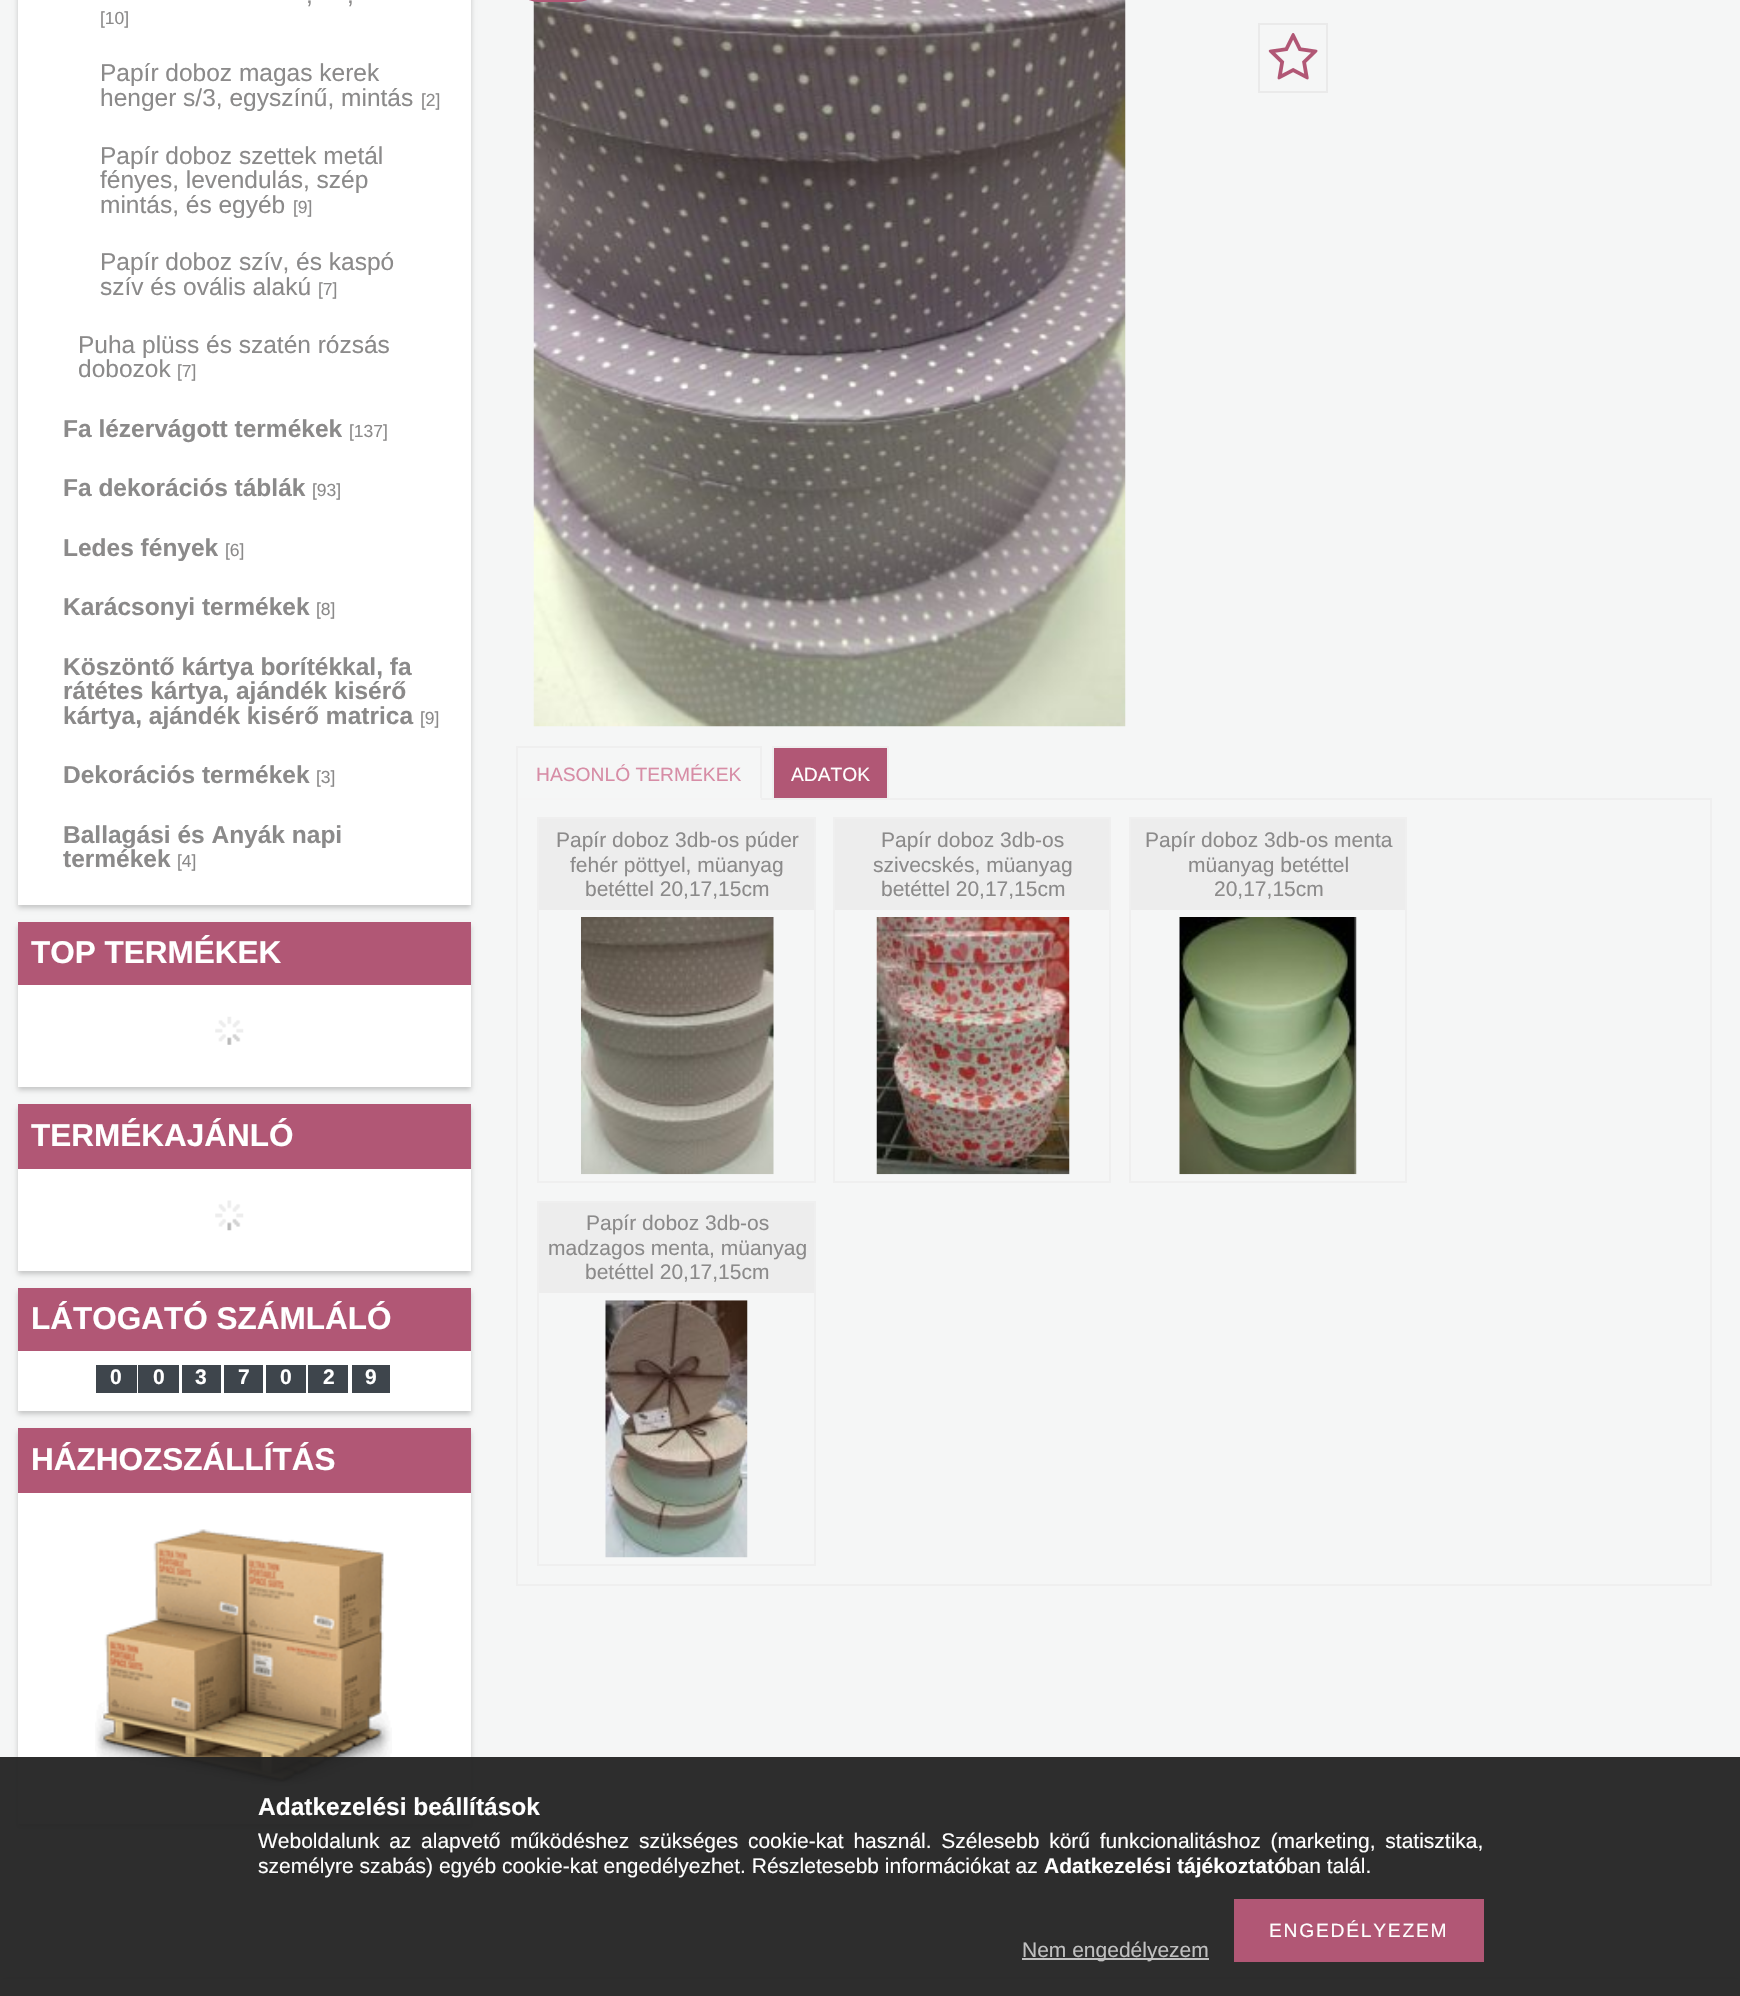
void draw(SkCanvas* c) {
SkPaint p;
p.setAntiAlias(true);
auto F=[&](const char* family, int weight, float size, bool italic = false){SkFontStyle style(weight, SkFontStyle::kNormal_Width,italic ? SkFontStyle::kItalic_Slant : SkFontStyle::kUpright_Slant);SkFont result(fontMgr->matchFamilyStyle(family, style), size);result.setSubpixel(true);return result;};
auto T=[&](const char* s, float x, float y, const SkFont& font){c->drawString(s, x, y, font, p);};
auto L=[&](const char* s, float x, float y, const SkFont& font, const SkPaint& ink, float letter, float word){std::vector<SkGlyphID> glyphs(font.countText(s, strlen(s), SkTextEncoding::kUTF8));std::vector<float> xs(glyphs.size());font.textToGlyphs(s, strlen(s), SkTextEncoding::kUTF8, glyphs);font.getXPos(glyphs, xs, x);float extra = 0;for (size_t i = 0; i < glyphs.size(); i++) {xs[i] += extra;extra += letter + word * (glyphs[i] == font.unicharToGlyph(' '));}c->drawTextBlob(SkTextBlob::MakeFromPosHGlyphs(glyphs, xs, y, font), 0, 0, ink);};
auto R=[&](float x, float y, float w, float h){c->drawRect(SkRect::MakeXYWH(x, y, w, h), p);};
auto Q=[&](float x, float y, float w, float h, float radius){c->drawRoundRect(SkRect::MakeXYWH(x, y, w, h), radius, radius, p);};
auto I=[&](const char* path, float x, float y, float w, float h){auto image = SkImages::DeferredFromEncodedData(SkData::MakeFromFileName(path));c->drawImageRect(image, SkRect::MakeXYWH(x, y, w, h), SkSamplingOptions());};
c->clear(0xfff5f6f6);
p.setColor(0x33000000);
p.setMaskFilter(SkMaskFilter::MakeBlur(kNormal_SkBlurStyle, 2.5));
c->drawRect(SkRect::MakeXYWH(18,-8,453,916),p);
p.setMaskFilter(nullptr);
p.setColor(0xffffffff);
R(18,0,453,905);
auto f1 = F("Liberation Sans",400,24.5);
p.setColor(0xff8b8a8a);
T(",",306,3,f1);
T(",",347,3,f1);
auto f2 = F("Liberation Sans",400,17.5);
T("[10]",100,24,f2);
T("Papír doboz magas kerek",100,81,f1);
T("henger s/3, egyszínű, mintás",100,106,f1);
T("[2]",421,106,f2);
T("Papír doboz szettek metál",100,164,f1);
T("fényes, levendulás, szép",100,188,f1);
T("mintás, és egyéb",100,213,f1);
T("[9]",293,213,f2);
T("Papír doboz szív, és kaspó",100,270,f1);
T("szív és ovális alakú",100,295,f1);
T("[7]",318,295,f2);
T("Puha plüss és szatén rózsás",78,353,f1);
T("dobozok",78,377,f1);
T("[7]",177,377,f2);
auto f3 = F("Liberation Sans",700,24.5);
T("Fa lézervágott termékek",63,437,f3);
T("[137]",349,437,f2);
T("Fa dekorációs táblák",63,496,f3);
T("[93]",312,496,f2);
T("Ledes fények",63,556,f3);
T("[6]",225,556,f2);
T("Karácsonyi termékek",63,615,f3);
T("[8]",316,615,f2);
T("Köszöntő kártya borítékkal, fa",63,675,f3);
T("rátétes kártya, ajándék kisérő",63,699,f3);
T("kártya, ajándék kisérő matrica",63,724,f3);
T("[9]",420,724,f2);
T("Dekorációs termékek",63,783,f3);
T("[3]",316,783,f2);
T("Ballagási és Anyák napi",63,843,f3);
T("termékek",63,867,f3);
T("[4]",177,867,f2);
p.setColor(0x33000000);
p.setMaskFilter(SkMaskFilter::MakeBlur(kNormal_SkBlurStyle, 2.5));
c->drawRect(SkRect::MakeXYWH(18,926,453,164),p);
p.setMaskFilter(nullptr);
p.setColor(0xffb15775);
R(18,922,453,63);
auto f4 = F("Liberation Sans",700,31.5);
p.setColor(0xffffffff);
T("TOP TERMÉKEK",31,963,f4);
R(18,985,453,102);
I("1.png",215,1016,29,29);
p.setColor(0x33000000);
p.setMaskFilter(SkMaskFilter::MakeBlur(kNormal_SkBlurStyle, 2.5));
c->drawRect(SkRect::MakeXYWH(18,1108,453,166),p);
p.setMaskFilter(nullptr);
p.setColor(0xffb15775);
R(18,1104,453,65);
p.setColor(0xffffffff);
T("TERMÉKAJÁNLÓ",31,1146,f4);
R(18,1169,453,102);
I("2.png",215,1200,29,31);
p.setColor(0x33000000);
p.setMaskFilter(SkMaskFilter::MakeBlur(kNormal_SkBlurStyle, 2.5));
c->drawRect(SkRect::MakeXYWH(18,1292,453,122),p);
p.setMaskFilter(nullptr);
p.setColor(0xffb15775);
R(18,1288,453,63);
p.setColor(0xffffffff);
T("LÁTOGATÓ SZÁMLÁLÓ",31,1329,f4);
R(18,1351,453,60);
p.setColor(0xff3e454c);
R(96,1365,41,28);
auto f5 = F("Liberation Sans",700,21);
p.setColor(0xffffffff);
T("0",110,1384,f5);
p.setColor(0xff3e454c);
R(138,1365,41,28);
p.setColor(0xffffffff);
T("0",153,1384,f5);
p.setColor(0xff3e454c);
R(182,1365,39,28);
p.setColor(0xffffffff);
T("3",195,1384,f5);
p.setColor(0xff3e454c);
R(224,1365,39,28);
p.setColor(0xffffffff);
T("7",238,1384,f5);
p.setColor(0xff3e454c);
R(266,1365,40,28);
p.setColor(0xffffffff);
T("0",280,1384,f5);
p.setColor(0xff3e454c);
R(308,1365,40,28);
p.setColor(0xffffffff);
T("2",323,1384,f5);
p.setColor(0xff3e454c);
R(352,1365,38,28);
p.setColor(0xffffffff);
T("9",365,1384,f5);
p.setColor(0x33000000);
p.setMaskFilter(SkMaskFilter::MakeBlur(kNormal_SkBlurStyle, 2.5));
c->drawRect(SkRect::MakeXYWH(18,1432,453,395),p);
p.setMaskFilter(nullptr);
p.setColor(0xffb15775);
R(18,1428,453,65);
p.setColor(0xffffffff);
T("HÁZHOZSZÁLLÍTÁS",31,1470,f4);
R(18,1493,453,331);
I("3.png",95,1529,297,262);
I("4.png",533,0,593,727);
p.setColor(0xffb15775);
Q(516,-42,84,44,42);
p.setStroke(true);
p.setStrokeWidth(2);
p.setColor(0xffeaeaea);
c->drawRect(SkRect::MakeXYWH(1259,24,68,68),p);
I("5.png",1268,33,50,47);
p.setStroke(false);
p.setColor(0xffefefef);
R(516,746,245,2);
p.setStroke(true);
c->drawRect(SkRect::MakeXYWH(517,799,1194,786),p);
p.setStroke(false);
R(760,746,2,54);
p.setColor(0xfff5f5f5);
R(516,798,245,2);
p.setColor(0xffefefef);
R(516,746,2,54);
auto f6 = F("Liberation Sans",400,19.25);
p.setColor(0xffd78da6);
T("HASONLÓ TERMÉKEK",536,781,f6);
p.setColor(0xffb15775);
c->drawRect(SkRect::MakeXYWH(773,747,115,52),p);
p.setStroke(true);
p.setColor(0xffefefef);
c->drawRect(SkRect::MakeXYWH(773,747,115,52),p);
p.setStroke(false);
p.setColor(0xffffffff);
T("ADATOK",791,781,f6);
p.setStroke(true);
p.setColor(0xffefefef);
c->drawRect(SkRect::MakeXYWH(538,818,277,364),p);
p.setStroke(false);
p.setColor(0xffededed);
R(539,819,275,91);
auto f7 = F("Liberation Sans",400,21);
p.setColor(0xff8b8a8a);
T("Papír doboz 3db-os púder",556,847,f7);
T("fehér pöttyel, müanyag",570,872,f7);
T("betéttel 20,17,15cm",585,896,f7);
I("6.png",581,917,193,258);
p.setStroke(true);
p.setColor(0xffefefef);
c->drawRect(SkRect::MakeXYWH(834,818,276,364),p);
p.setStroke(false);
p.setColor(0xffededed);
R(835,819,274,91);
p.setColor(0xff8b8a8a);
T("Papír doboz 3db-os",881,847,f7);
T("szivecskés, müanyag",873,872,f7);
T("betéttel 20,17,15cm",881,896,f7);
I("7.png",876,917,194,258);
p.setStroke(true);
p.setColor(0xffefefef);
c->drawRect(SkRect::MakeXYWH(1130,818,276,364),p);
p.setStroke(false);
p.setColor(0xffededed);
R(1131,819,274,91);
p.setColor(0xff8b8a8a);
T("Papír doboz 3db-os menta",1145,847,f7);
T("müanyag betéttel",1188,872,f7);
T("20,17,15cm",1214,896,f7);
I("8.png",1179,917,178,258);
p.setStroke(true);
p.setColor(0xffefefef);
c->drawRect(SkRect::MakeXYWH(538,1202,277,363),p);
p.setStroke(false);
p.setColor(0xffededed);
R(539,1203,275,90);
p.setColor(0xff8b8a8a);
T("Papír doboz 3db-os",586,1230,f7);
T("madzagos menta, müanyag",548,1255,f7);
T("betéttel 20,17,15cm",585,1279,f7);
I("9.png",605,1300,143,258);
p.setColor(0x1a000000);
p.setMaskFilter(SkMaskFilter::MakeBlur(kNormal_SkBlurStyle, 4.5));
c->drawRect(SkRect::MakeXYWH(0,1979,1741,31),p);
p.setMaskFilter(nullptr);
p.setColor(0xffffffff);
R(0,1979,1740,17);
p.setColor(0xf2222222);
R(0,1757,1740,239);
p.setColor(0xffffffff);
T("Adatkezelési beállítások",258,1815,f3);
L("Weboldalunk az alapvető működéshez szükséges cookie-kat használ. Szélesebb körű funkcionalitáshoz (marketing, statisztika,",258,1848,f7,p,0,3.9);
T("személyre szabás) egyéb cookie-kat engedélyezhet. Részletesebb információkat az",258,1873,f7);
T("Adatkezelési tájékoztató",1044,1873,f5);
T("ban talál.",1286,1873,f7);
p.setColor(0xffb15775);
R(1234,1899,250,63);
p.setColor(0xffffffff);
L("ENGEDÉLYEZEM",1269,1937,f6,p,1.75,0);
p.setColor(0xffc0c0c0);
R(1022,1958,187,2);
T("Nem engedélyezem",1022,1957,f7);
}
